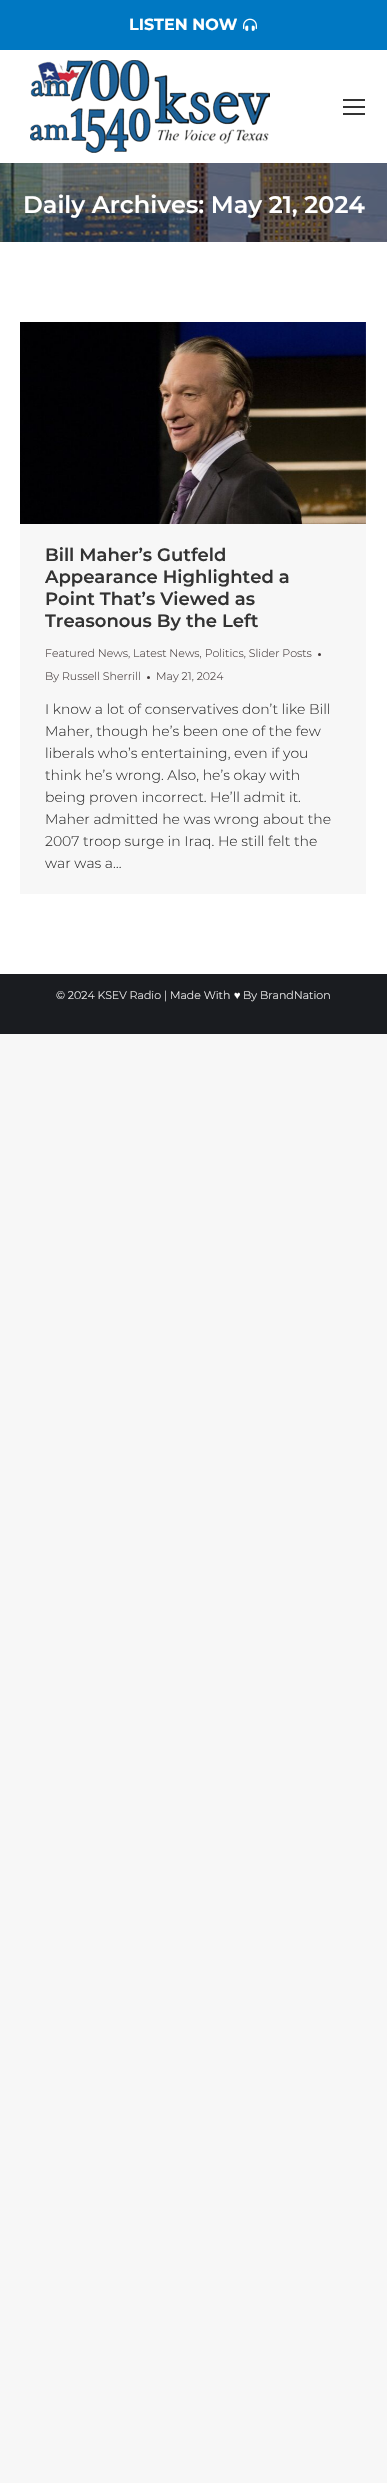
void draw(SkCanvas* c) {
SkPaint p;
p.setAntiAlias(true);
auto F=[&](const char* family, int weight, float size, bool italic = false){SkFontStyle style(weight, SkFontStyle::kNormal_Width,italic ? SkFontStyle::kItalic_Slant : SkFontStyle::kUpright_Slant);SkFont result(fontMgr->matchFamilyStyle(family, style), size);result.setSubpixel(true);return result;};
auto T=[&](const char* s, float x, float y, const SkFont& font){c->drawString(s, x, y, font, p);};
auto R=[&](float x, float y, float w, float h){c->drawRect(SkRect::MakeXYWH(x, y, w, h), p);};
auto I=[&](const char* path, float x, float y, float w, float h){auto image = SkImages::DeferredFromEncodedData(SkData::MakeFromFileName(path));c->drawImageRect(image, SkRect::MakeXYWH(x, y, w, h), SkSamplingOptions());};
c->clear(0xfff7f7f7);
p.setColor(0xffffffff);
R(0,50,387,924);
p.setColor(0xff0078c2);
R(0,0,387,50);
auto f1 = F("Montserrat",700,16);
p.setColor(0xffffffff);
T("LISTEN NOW",129,30,f1);
I("1.png",243,18,14,13);
I("2.png",30,60,240,93);
p.setColor(0xff333333);
R(343,99,22,2);
R(343,106,22,2);
R(343,113,22,2);
I("3.png",0,163,387,79);
auto f2 = F("Montserrat",600,24);
p.setColor(0xffffffff);
T("Daily Archives: May 21, 2024",23,213,f2);
p.setColor(0xfff7f7f7);
R(20,322,346,572);
I("4.png",20,322,346,202);
auto f3 = F("Montserrat",600,18);
p.setColor(0xff333333);
T("Bill Maher’s Gutfeld",45,561,f3);
T("Appearance Highlighted a",45,583,f3);
T("Point That’s Viewed as",45,605,f3);
T("Treasonous By the Left",45,627,f3);
auto f4 = F("Montserrat",300,11);
p.setColor(0xff443b3b);
T("Featured News, Latest News, Politics, Slider Posts",45,657,f4);
c->drawCircle(319.5,654.5,1.5,p);
T("By Russell Sherrill",45,680,f4);
c->drawCircle(148.5,677.5,1.5,p);
T("May 21, 2024",156,680,f4);
auto f5 = F("Montserrat",300,14);
p.setColor(0xff333333);
T("I know a lot of conservatives don’t like Bill",45,714,f5);
T("Maher, though he’s been one of the few",45,736,f5);
T("liberals who’s entertaining, even if you",45,758,f5);
T("think he’s wrong. Also, he’s okay with",45,780,f5);
T("being proven incorrect. He’ll admit it.",45,802,f5);
T("Maher admitted he was wrong about the",45,824,f5);
T("2007 troop surge in Iraq. He still felt the",45,846,f5);
T("war was a…",45,868,f5);
p.setColor(0xff1a1c20);
R(0,974,387,60);
p.setColor(0xffffffff);
T("© 2024 KSEV Radio | Made With",56,999,f4);
auto f6 = F("Liberation Sans",400,11);
T("♥",234,999,f6);
T("By BrandNation",243,999,f4);
}
